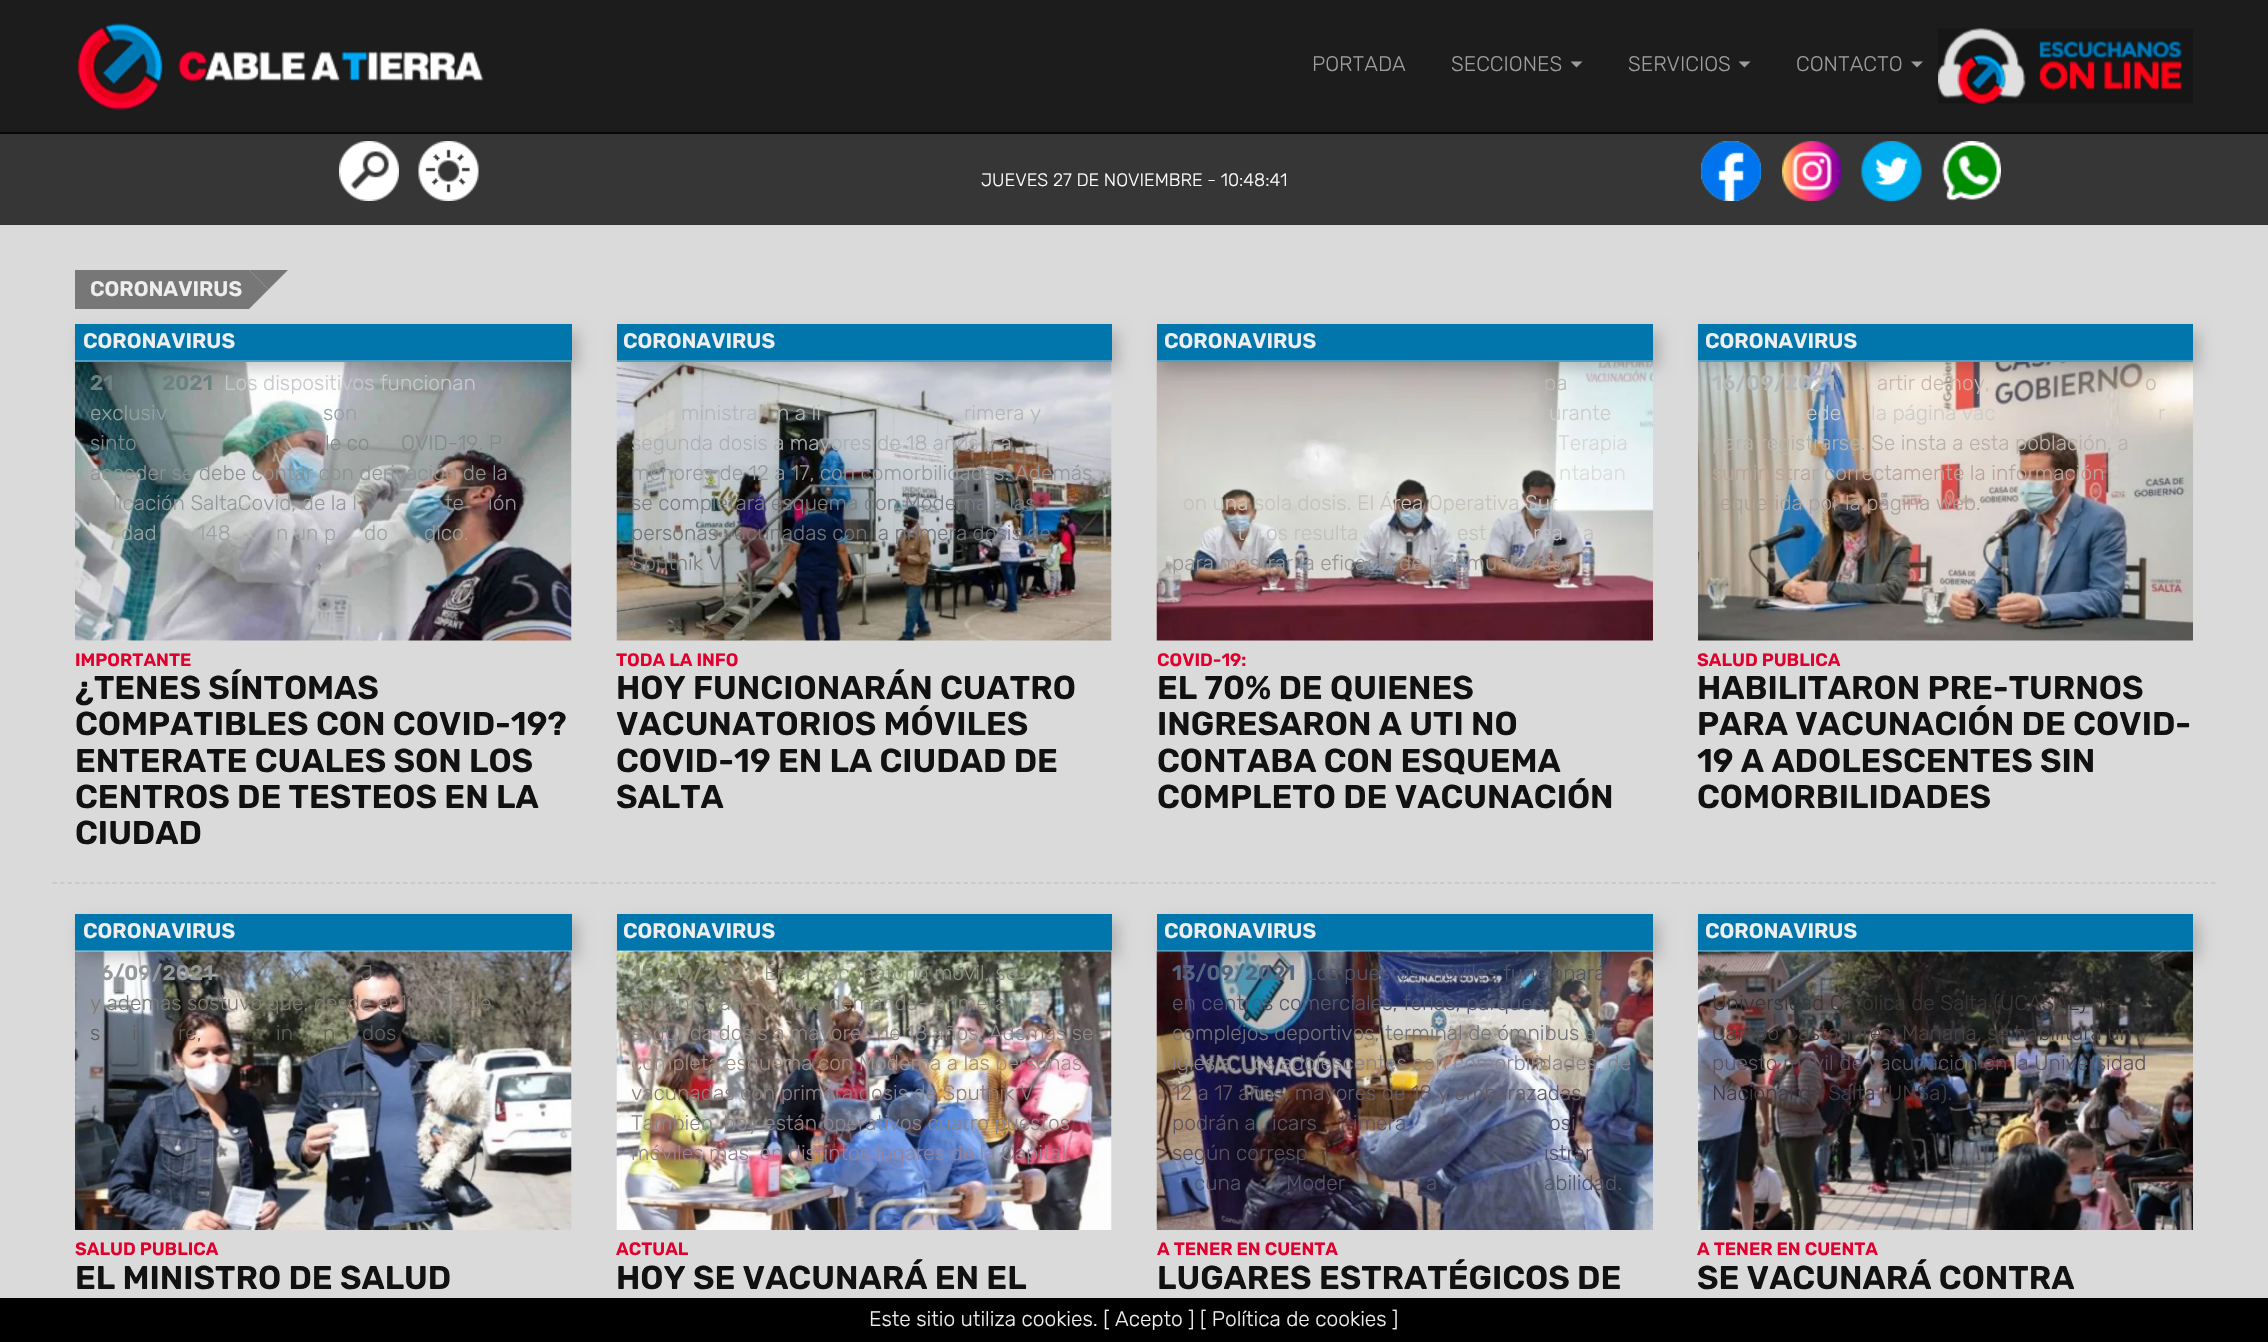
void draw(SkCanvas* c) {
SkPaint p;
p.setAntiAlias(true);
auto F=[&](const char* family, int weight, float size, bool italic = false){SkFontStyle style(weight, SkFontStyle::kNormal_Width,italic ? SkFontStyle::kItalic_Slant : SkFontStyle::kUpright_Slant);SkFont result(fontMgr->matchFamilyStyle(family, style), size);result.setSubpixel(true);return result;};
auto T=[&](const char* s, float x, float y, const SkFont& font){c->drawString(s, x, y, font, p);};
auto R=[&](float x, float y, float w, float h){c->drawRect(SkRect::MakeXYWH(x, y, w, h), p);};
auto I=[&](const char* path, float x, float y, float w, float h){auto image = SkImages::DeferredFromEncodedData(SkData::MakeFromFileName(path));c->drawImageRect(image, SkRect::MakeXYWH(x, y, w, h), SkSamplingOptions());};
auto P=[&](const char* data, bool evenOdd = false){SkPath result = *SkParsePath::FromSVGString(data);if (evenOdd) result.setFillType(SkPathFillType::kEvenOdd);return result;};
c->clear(0xffdadada);
p.setColor(0xff1c1c1c);
R(0,0,2268,132);
p.setColor(0xff080808);
R(0,132,2268,2);
I("1.png",77,23,407,87);
auto f1 = F("Rubik",300,21);
p.setColor(0xff9d9d9d);
T("PORTADA",1312,71,f1);
T("SECCIONES",1451,71,f1);
c->drawPath(P("M1570.5 61.5h12l-6 6z"),p);
T("SERVICIOS",1628,71,f1);
c->drawPath(P("M1738.5 61.5h12l-6 6z"),p);
T("CONTACTO",1796,71,f1);
c->drawPath(P("M1911 61.5h12l-6 6z"),p);
I("2.png",1938,28,255,76);
p.setColor(0xff363636);
R(0,134,2268,91);
I("3.png",339,141,60,60);
I("4.png",418,141,61,60);
auto f2 = F("Rubik",300,18);
p.setColor(0xffffffff);
T("JUEVES 27 DE NOVIEMBRE - 10:48:41",981,186,f2);
I("5.png",1701,141,60,60);
I("6.png",1782,141,60,60);
I("7.png",1861,141,61,60);
I("8.png",1942,141,59,60);
p.setColor(0xff777777);
R(75,270,174,39);
auto f3 = F("Rubik",600,21);
p.setColor(0xffeeeeee);
T("CORONAVIRUS",90,296,f3);
p.setColor(0xff777777);
c->drawPath(P("M249 270h39l-19.5 19.5z"),p);
c->drawPath(P("M249 309v-39l19.5 19.5z"),p);
p.setStroke(true);
p.setStrokeWidth(1.5);
p.setColor(0xffc4c4c4);
p.setPathEffect(SkDashPathEffect::Make({{4.5f,2.96f}}, 0));
c->drawPath(P("M52.5 883h541.5"),p);
p.setPathEffect(nullptr);
I("9.png",75,362,497,279);
p.setStroke(false);
p.setColor(0x33000000);
p.setMaskFilter(SkMaskFilter::MakeBlur(kNormal_SkBlurStyle, 7.5));
c->drawRect(SkRect::MakeXYWH(81,332,497,37),p);
p.setMaskFilter(nullptr);
p.setColor(0xff0076ad);
R(75,324,497,36);
p.setColor(0xff4d9fc6);
R(75,360,497,2);
p.setColor(0xffeeeeee);
T("CORONAVIRUS",83,348,f3);
p.setColor(0xff6e8181);
T("21",90,390,f3);
T("2021",162,390,f3);
p.setColor(0xffc7c9cb);
T("Los dispositivos funcionan",224,390,f1);
p.setColor(0xff93a2a2);
T("exclusiv",90,420,f1);
T("son",323,420,f1);
p.setColor(0xff818b89);
T("sinto",90,450,f1);
T("le co",325,450,f1);
T("OVID-19. P",401,450,f1);
p.setColor(0xff8d9293);
T("acceder se debe contar con derivación de la",90,480,f1);
p.setColor(0xff94989b);
T("licación SaltaCovid, de la l",113,510,f1);
T("te",445,510,f1);
T("ión",488,510,f1);
p.setColor(0xff9ca2a4);
T("dad",121,540,f1);
T("148",197,540,f1);
T("n un p",276,540,f1);
T("do",364,540,f1);
T("dico.",424,540,f1);
auto f4 = F("Rubik",600,18);
p.setColor(0xffdf002d);
T("IMPORTANTE",75,666,f4);
auto f5 = F("Rubik",600,33);
p.setColor(0xff111111);
T("¿TENES SÍNTOMAS",75,699,f5);
T("COMPATIBLES CON COVID-19?",75,735,f5);
T("ENTERATE CUALES SON LOS",75,772,f5);
T("CENTROS DE TESTEOS EN LA",75,808,f5);
T("CIUDAD",75,844,f5);
p.setStroke(true);
p.setColor(0xffc4c4c4);
p.setPathEffect(SkDashPathEffect::Make({{4.5f,3.04f}}, 0));
c->drawPath(P("M594 883h540"),p);
p.setPathEffect(nullptr);
I("10.png",616,361,496,280);
p.setStroke(false);
p.setColor(0x33000000);
p.setMaskFilter(SkMaskFilter::MakeBlur(kNormal_SkBlurStyle, 7.5));
c->drawRect(SkRect::MakeXYWH(623,332,495,37),p);
p.setMaskFilter(nullptr);
p.setColor(0xff0076ad);
R(617,324,495,36);
p.setColor(0xff4d9fc6);
R(617,360,495,2);
p.setColor(0xffeeeeee);
T("CORONAVIRUS",623,348,f3);
p.setColor(0xffb4b7b8);
T("ministra",681,420,f1);
T("n a li",777,420,f1);
T("rimera y",964,420,f1);
p.setColor(0xffadafb2);
T("segunda dosis a mayores de 18 años y a",631,450,f1);
p.setColor(0xff94989b);
T("menores de 12 a 17, con comorbilidades. Además",631,480,f1);
p.setColor(0xff7b7d85);
T("se completará esquema con Moderna a las",631,510,f1);
p.setColor(0xff71747a);
T("personas vacunadas con la primera dosis de",631,540,f1);
p.setColor(0xff7e7d7c);
T("Sputnik V.",631,570,f1);
p.setColor(0xffdf002d);
T("TODA LA INFO",616,666,f4);
p.setColor(0xff111111);
T("HOY FUNCIONARÁN CUATRO",616,699,f5);
T("VACUNATORIOS MÓVILES",616,735,f5);
T("COVID-19 EN LA CIUDAD DE",616,772,f5);
T("SALTA",616,808,f5);
p.setStroke(true);
p.setColor(0xffc4c4c4);
p.setPathEffect(SkDashPathEffect::Make({{4.5f,2.96f}}, 0));
c->drawPath(P("M1134 883h541.5"),p);
p.setPathEffect(nullptr);
I("11.png",1156,361,497,280);
p.setStroke(false);
p.setColor(0x33000000);
p.setMaskFilter(SkMaskFilter::MakeBlur(kNormal_SkBlurStyle, 7.5));
c->drawRect(SkRect::MakeXYWH(1163,332,496,37),p);
p.setMaskFilter(nullptr);
p.setColor(0xff0076ad);
R(1157,324,496,36);
p.setColor(0xff4d9fc6);
R(1157,360,496,2);
p.setColor(0xffeeeeee);
T("CORONAVIRUS",1164,348,f3);
p.setColor(0xffbfb9b7);
T("pa",1544,390,f1);
p.setColor(0xffcdccc9);
T("urante",1549,420,f1);
p.setColor(0xffd7d7d4);
T("Terapia",1558,450,f1);
p.setColor(0xffdbddd9);
T("ntaban",1559,480,f1);
p.setColor(0xffc6c2bc);
T("on una sola dosis. El Área Operativa Sur",1183,510,f1);
p.setColor(0xffc1c1c2);
T("t",1237,540,f1);
T("os resulta",1266,540,f1);
T("est",1457,540,f1);
T("rea",1533,540,f1);
T("a",1583,540,f1);
p.setColor(0xff9c9393);
T("para mostrar la eficacia de la inmunización",1172,570,f1);
p.setColor(0xffdf002d);
T("COVID-19:",1157,666,f4);
p.setColor(0xff111111);
T("EL 70% DE QUIENES",1157,699,f5);
T("INGRESARON A UTI NO",1157,735,f5);
T("CONTABA CON ESQUEMA",1157,772,f5);
T("COMPLETO DE VACUNACIÓN",1157,808,f5);
p.setStroke(true);
p.setColor(0xffc4c4c4);
p.setPathEffect(SkDashPathEffect::Make({{4.5f,3.04f}}, 0));
c->drawPath(P("M1675.5 883h540"),p);
p.setPathEffect(nullptr);
I("12.png",1698,362,495,279);
p.setStroke(false);
p.setColor(0x33000000);
p.setMaskFilter(SkMaskFilter::MakeBlur(kNormal_SkBlurStyle, 7.5));
c->drawRect(SkRect::MakeXYWH(1704,332,495,37),p);
p.setMaskFilter(nullptr);
p.setColor(0xff0076ad);
R(1698,324,495,36);
p.setColor(0xff4d9fc6);
R(1698,360,495,2);
p.setColor(0xffeeeeee);
T("CORONAVIRUS",1705,348,f3);
p.setColor(0xffb4b7b8);
T("16/09/2021",1712,390,f3);
p.setColor(0xffc8b7ad);
T("artir de hoy,",1877,390,f1);
T("o",2145,390,f1);
p.setColor(0xffcdccc9);
T("ede",1806,420,f1);
T("la página vac",1871,420,f1);
T("r",2158,420,f1);
p.setColor(0xffb7b1ab);
T("para registrarse. Se insta a esta población, a",1712,450,f1);
p.setColor(0xffbba39a);
T("suministrar correctamente la información",1712,480,f1);
p.setColor(0xffac9e99);
T("equerida por la página web.",1720,510,f1);
p.setColor(0xffdf002d);
T("SALUD PUBLICA",1697,666,f4);
p.setColor(0xff111111);
T("HABILITARON PRE-TURNOS",1697,699,f5);
T("PARA VACUNACIÓN DE COVID-",1697,735,f5);
T("19 A ADOLESCENTES SIN",1697,772,f5);
T("COMORBILIDADES",1697,808,f5);
I("13.png",75,951,497,279);
p.setColor(0x33000000);
p.setMaskFilter(SkMaskFilter::MakeBlur(kNormal_SkBlurStyle, 7.5));
c->drawRect(SkRect::MakeXYWH(81,921,497,38),p);
p.setMaskFilter(nullptr);
p.setColor(0xff0076ad);
R(75,914,497,37);
p.setColor(0x4dffffff);
R(75,950,497,2);
p.setColor(0xffeeeeee);
T("CORONAVIRUS",83,938,f3);
p.setColor(0xff94989b);
T("6/09/2021",100,980,f3);
p.setColor(0xff75726e);
T("x",291,980,f1);
T("J",360,980,f1);
p.setColor(0xff7f7a73);
T("y además sostuvo que, desde el 11 al 15 de",90,1010,f1);
p.setColor(0xff605e59);
T("s",90,1040,f1);
T("i",132,1040,f1);
T("re,",178,1040,f1);
T("in",276,1040,f1);
T("n",323,1040,f1);
T("dos",362,1040,f1);
p.setColor(0xff606670);
T(".",170,1070,f1);
p.setColor(0xffdf002d);
T("SALUD PUBLICA",75,1255,f4);
p.setColor(0xff111111);
T("EL MINISTRO DE SALUD",75,1289,f5);
I("14.png",616,951,496,279);
p.setColor(0x33000000);
p.setMaskFilter(SkMaskFilter::MakeBlur(kNormal_SkBlurStyle, 7.5));
c->drawRect(SkRect::MakeXYWH(623,921,495,38),p);
p.setMaskFilter(nullptr);
p.setColor(0xff0076ad);
R(617,914,495,37);
p.setColor(0x4dffffff);
R(617,950,495,2);
p.setColor(0xffeeeeee);
T("CORONAVIRUS",623,938,f3);
p.setColor(0xff8a8a72);
T("15/09/2021",631,980,f3);
p.setColor(0xff8c927c);
T("En el vacunatorio móvil, se",764,980,f1);
p.setColor(0xff878679);
T("administran – a libre demanda- primera y",631,1010,f1);
p.setColor(0xff918785);
T("segunda dosis a mayores de 18 años. Además se",631,1040,f1);
p.setColor(0xffa38d85);
T("completa esquema con Moderna a las personas",631,1070,f1);
p.setColor(0xff8f7d80);
T("vacunadas con primera dosis de Sputnik V.",631,1100,f1);
p.setColor(0xff89838a);
T("También, hoy están operativos cuatro puestos",631,1130,f1);
p.setColor(0xff95829a);
T("móviles más, en distintos lugares de la Capital.",631,1160,f1);
p.setColor(0xffdf002d);
T("ACTUAL",616,1255,f4);
p.setColor(0xff111111);
T("HOY SE VACUNARÁ EN EL",616,1289,f5);
I("15.png",1156,951,497,279);
p.setColor(0x33000000);
p.setMaskFilter(SkMaskFilter::MakeBlur(kNormal_SkBlurStyle, 7.5));
c->drawRect(SkRect::MakeXYWH(1163,921,496,38),p);
p.setMaskFilter(nullptr);
p.setColor(0xff0076ad);
R(1157,914,496,37);
p.setColor(0x4dffffff);
R(1157,950,496,2);
p.setColor(0xffeeeeee);
T("CORONAVIRUS",1164,938,f3);
p.setColor(0xff556780);
T("13/09/2021",1172,980,f3);
p.setColor(0xff535668);
T("Los puestos móviles funcionará",1305,980,f1);
p.setColor(0xff525870);
T("en centros comerciales, ferias, parques,",1172,1010,f1);
p.setColor(0xff71747a);
T("complejos deportivos, terminal de ómnibus e",1172,1040,f1);
p.setColor(0xff89838a);
T("iglesia. Los adolescentes con comorbilidades, de",1172,1070,f1);
p.setColor(0xff655b64);
T("12 a 17 años; mayores de 18 y embarazadas",1172,1100,f1);
p.setColor(0xff5c5462);
T("podrán a",1172,1130,f1);
T("icars",1272,1130,f1);
T("imera",1353,1130,f1);
T("osi",1549,1130,f1);
p.setColor(0xff545060);
T("según corresp",1172,1160,f1);
T(".",1355,1160,f1);
T("istrar",1544,1160,f1);
p.setColor(0xff535668);
T("cuna",1194,1190,f1);
T("Moder",1286,1190,f1);
T("a",1426,1190,f1);
T("abilidad.",1544,1190,f1);
p.setColor(0xffdf002d);
T("A TENER EN CUENTA",1157,1255,f4);
p.setColor(0xff111111);
T("LUGARES ESTRATÉGICOS DE",1157,1289,f5);
I("16.png",1698,951,495,279);
p.setColor(0x33000000);
p.setMaskFilter(SkMaskFilter::MakeBlur(kNormal_SkBlurStyle, 7.5));
c->drawRect(SkRect::MakeXYWH(1704,921,495,38),p);
p.setMaskFilter(nullptr);
p.setColor(0xff0076ad);
R(1698,914,495,37);
p.setColor(0x4dffffff);
R(1698,950,495,2);
p.setColor(0xffeeeeee);
T("CORONAVIRUS",1705,938,f3);
p.setColor(0xff3a3636);
T("Universidad Católica de Salta (UCASAL) de",1712,1010,f1);
p.setColor(0xff494141);
T("Campo Castañares. Mañana, se habilitará un",1712,1040,f1);
p.setColor(0xff5c5462);
T("puesto móvil de vacunación en la Universidad",1712,1070,f1);
p.setColor(0xff433b43);
T("Nacional de Salta (UNSa).",1712,1100,f1);
p.setColor(0xffdf002d);
T("A TENER EN CUENTA",1697,1255,f4);
p.setColor(0xff111111);
T("SE VACUNARÁ CONTRA",1697,1289,f5);
p.setColor(0xff000000);
R(0,1298,2268,44);
p.setColor(0xffeeeeee);
T("Este sitio utiliza cookies. [ Acepto ] [ Política de cookies ]",869,1326,f1);
}
